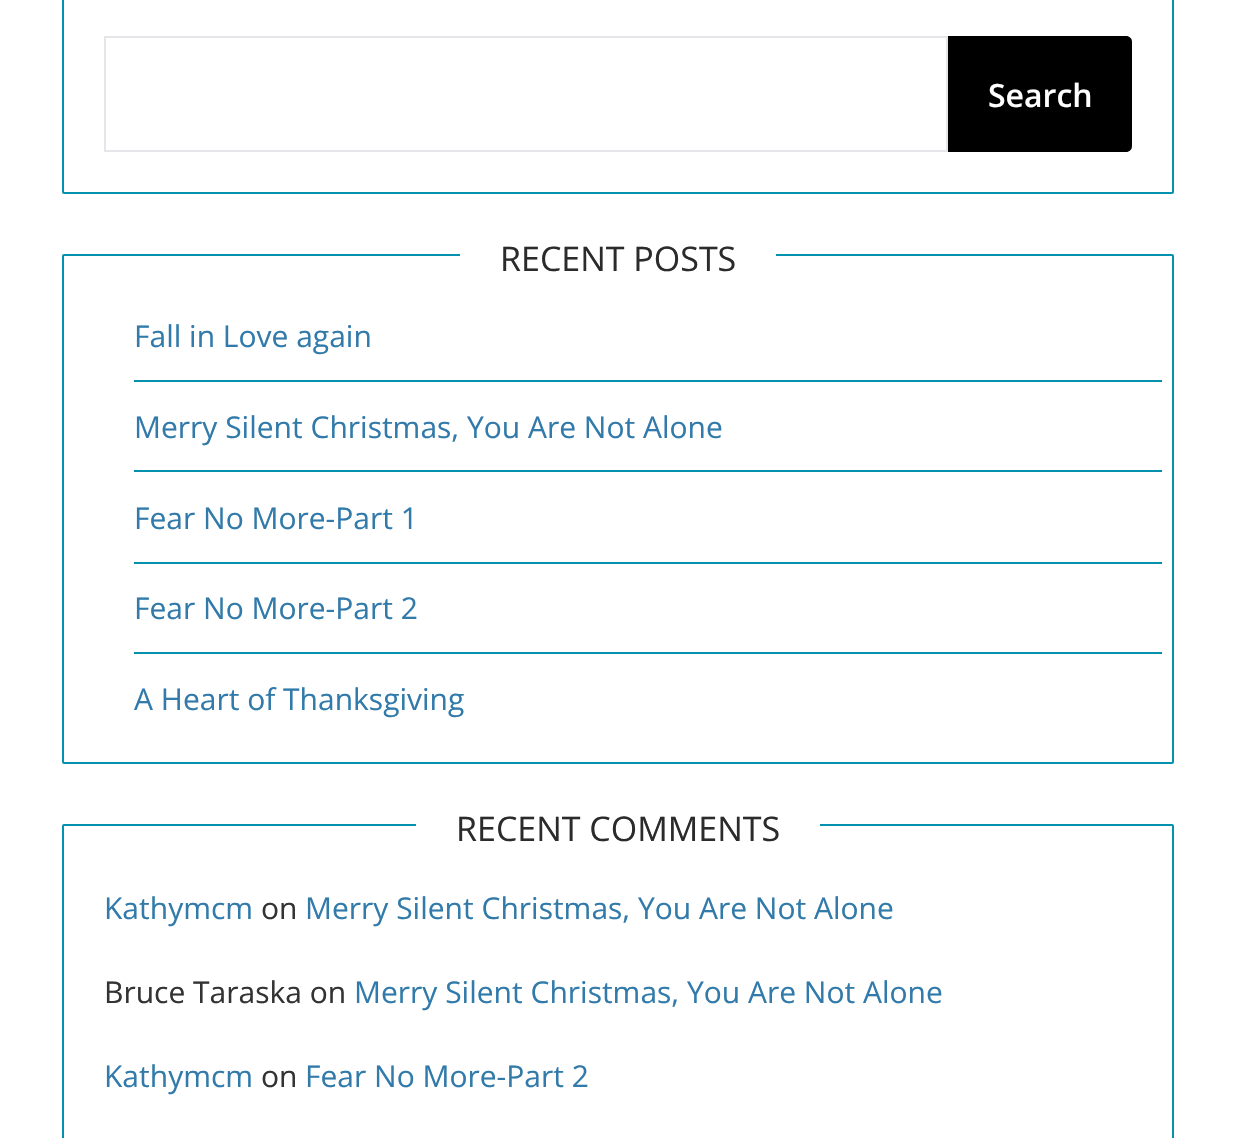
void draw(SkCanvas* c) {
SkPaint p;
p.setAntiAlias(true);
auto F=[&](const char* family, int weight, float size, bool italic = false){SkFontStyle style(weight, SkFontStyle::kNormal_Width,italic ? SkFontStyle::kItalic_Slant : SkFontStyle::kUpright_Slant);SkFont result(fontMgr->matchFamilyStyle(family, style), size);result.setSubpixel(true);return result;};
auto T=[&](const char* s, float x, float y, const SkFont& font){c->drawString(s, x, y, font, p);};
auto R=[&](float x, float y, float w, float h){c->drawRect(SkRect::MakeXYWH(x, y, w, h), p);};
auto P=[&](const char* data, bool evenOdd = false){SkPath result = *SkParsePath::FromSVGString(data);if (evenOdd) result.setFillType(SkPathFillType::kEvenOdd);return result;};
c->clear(0xffffffff);
p.setStroke(true);
p.setStrokeWidth(2);
p.setColor(0xff0391ad);
c->drawRoundRect(SkRect::MakeXYWH(63,-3,1110,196),1,1,p);
p.setColor(0xffe5e6e9);
c->drawRect(SkRect::MakeXYWH(105,37,842,114),p);
p.setStroke(false);
p.setColor(0xff000000);
c->drawPath(P("M948 36h178c3.5 0 6 2.5 6 6v104c0 3.5-2.5 6-6 6h-178z"),p);
auto f1 = F("Open Sans",600,32);
p.setColor(0xffffffff);
T("Search",988,107,f1);
p.setStroke(true);
p.setColor(0xff0391ad);
c->drawRoundRect(SkRect::MakeXYWH(63,255,1110,508),1,1,p);
p.setStroke(false);
p.setColor(0xffffffff);
R(460,254,316,2);
auto f2 = F("Open Sans",400,34);
p.setColor(0xff2b2b2b);
T("RECENT POSTS",500,271,f2);
p.setColor(0xff0391ad);
R(134,380,1028,2);
auto f3 = F("Open Sans",400,30);
p.setColor(0xff317aaa);
T("Fall in Love again",134,347,f3);
p.setColor(0xff0391ad);
R(134,470,1028,2);
p.setColor(0xff317aaa);
T("Merry Silent Christmas, You Are Not Alone",134,438,f3);
p.setColor(0xff0391ad);
R(134,562,1028,2);
p.setColor(0xff317aaa);
T("Fear No More-Part 1",134,529,f3);
p.setColor(0xff0391ad);
R(134,652,1028,2);
p.setColor(0xff317aaa);
T("Fear No More-Part 2",134,619,f3);
T("A Heart of Thanksgiving",134,710,f3);
p.setStroke(true);
p.setColor(0xff0391ad);
c->drawRoundRect(SkRect::MakeXYWH(63,825,1110,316),1,1,p);
p.setStroke(false);
p.setColor(0xffffffff);
R(416,824,404,2);
p.setColor(0xff2b2b2b);
T("RECENT COMMENTS",456,841,f2);
p.setColor(0xff317aaa);
T("Kathymcm",104,919,f3);
p.setColor(0xff333333);
T("on",261,919,f3);
p.setColor(0xff317aaa);
T("Merry Silent Christmas, You Are Not Alone",305,919,f3);
p.setColor(0xff333333);
T("Bruce Taraska on",104,1003,f3);
p.setColor(0xff317aaa);
T("Merry Silent Christmas, You Are Not Alone",354,1003,f3);
T("Kathymcm",104,1087,f3);
p.setColor(0xff333333);
T("on",261,1087,f3);
p.setColor(0xff317aaa);
T("Fear No More-Part 2",305,1087,f3);
}
